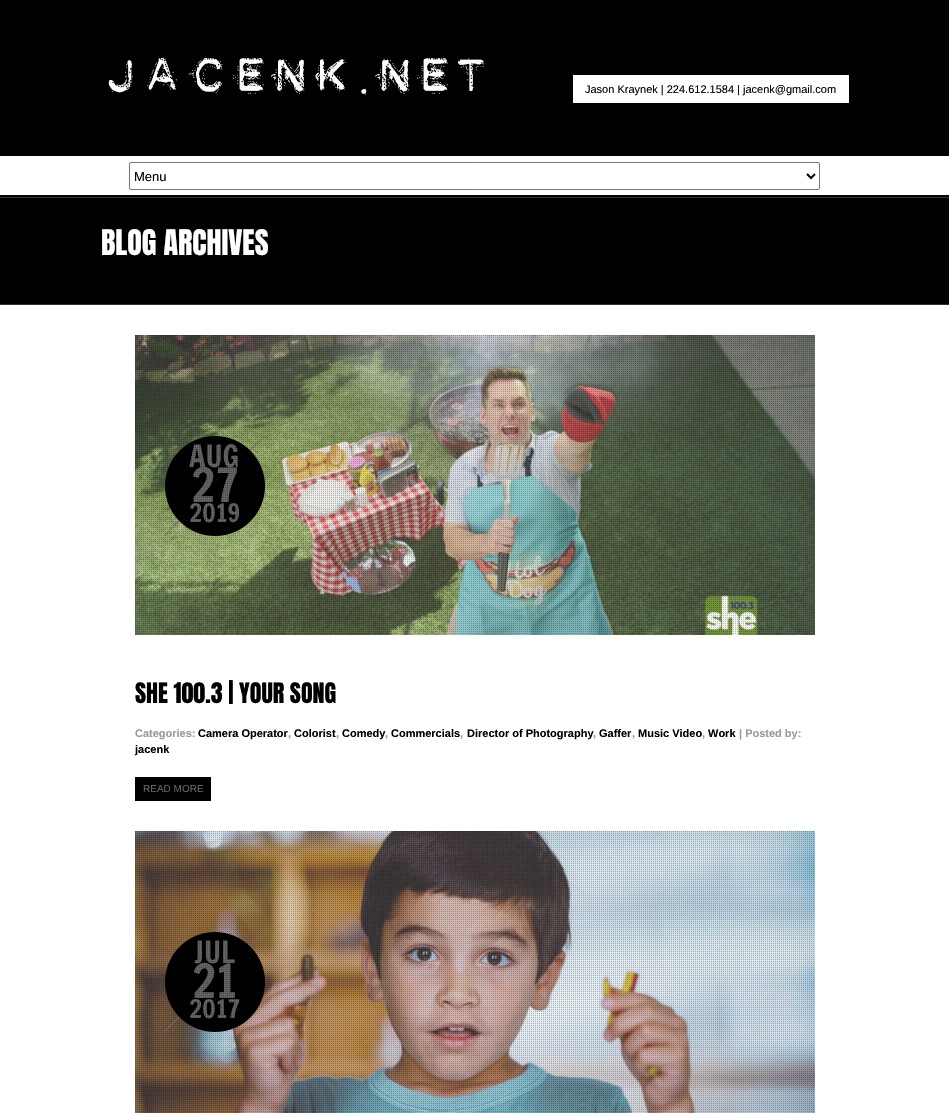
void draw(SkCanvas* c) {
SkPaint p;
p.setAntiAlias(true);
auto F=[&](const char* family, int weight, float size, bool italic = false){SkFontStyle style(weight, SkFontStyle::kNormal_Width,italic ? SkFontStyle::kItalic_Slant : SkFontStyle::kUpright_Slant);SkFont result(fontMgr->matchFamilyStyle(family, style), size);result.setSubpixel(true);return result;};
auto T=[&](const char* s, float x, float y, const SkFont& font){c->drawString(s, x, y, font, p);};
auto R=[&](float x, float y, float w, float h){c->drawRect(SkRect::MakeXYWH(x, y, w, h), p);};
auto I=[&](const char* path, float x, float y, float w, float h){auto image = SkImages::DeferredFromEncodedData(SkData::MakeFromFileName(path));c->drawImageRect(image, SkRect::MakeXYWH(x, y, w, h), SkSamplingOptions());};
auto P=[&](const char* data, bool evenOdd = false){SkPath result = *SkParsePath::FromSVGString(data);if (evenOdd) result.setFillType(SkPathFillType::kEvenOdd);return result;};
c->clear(0xffffffff);
p.setColor(0xff000000);
R(0,0,949,156);
R(0,195,949,2);
I("1.png",108,57,377,38);
p.setColor(0xffffffff);
R(573,75,276,28);
auto f1 = F("Liberation Sans",400,11);
p.setColor(0xff000000);
T("Jason Kraynek | 224.612.1584 | jacenk@gmail.com",585,93,f1);
p.setStroke(true);
p.setStrokeWidth(1);
p.setColor(0xff767676);
c->drawRoundRect(SkRect::MakeXYWH(129.5,162.5,690,27),1.5,1.5,p);
p.setStrokeWidth(2);
p.setColor(0xff000000);
c->drawPath(P("M807 174l4 4l4-4"),p);
auto f2 = F("Liberation Sans",400,13);
p.setStroke(false);
T("Menu",134,181,f2);
R(0,198,949,106);
p.setColor(0xff333333);
R(0,197,949,1);
R(0,304,949,1);
auto f3 = F("Anton",400,30);
p.setColor(0xffffffff);
T("BLOG ARCHIVES",101,255,f3);
I("2.png",135,335,680,300);
I("4.png",164,435,101,101);
auto f4 = F("Francois One",400,30);
p.setColor(0xff666666);
T("AUG",189,467,f4);
auto f5 = F("Francois One",400,46);
T("27",191,502,f5);
auto f6 = F("Francois One",400,25);
T("2019",189,522,f6);
I("3.png",135,335,680,300);
auto f7 = F("Anton",400,24);
p.setColor(0xff000000);
T("SHE 100.3 | YOUR SONG",135,703,f7);
auto f8 = F("Liberation Sans",700,11);
p.setColor(0xff999999);
T("Categories:",135,737,f8);
p.setColor(0xff000000);
T("Camera Operator",198,737,f8);
p.setColor(0xff999999);
T(",",288,737,f8);
p.setColor(0xff000000);
T("Colorist",294,737,f8);
p.setColor(0xff999999);
T(",",336,737,f8);
p.setColor(0xff000000);
T("Comedy",342,737,f8);
p.setColor(0xff999999);
T(",",385,737,f8);
p.setColor(0xff000000);
T("Commercials",391,737,f8);
p.setColor(0xff999999);
T(",",460,737,f8);
p.setColor(0xff000000);
T("Director of Photography",467,737,f8);
p.setColor(0xff999999);
T(",",593,737,f8);
p.setColor(0xff000000);
T("Gaffer",599,737,f8);
p.setColor(0xff999999);
T(",",632,737,f8);
p.setColor(0xff000000);
T("Music Video",638,737,f8);
p.setColor(0xff999999);
T(",",702,737,f8);
p.setColor(0xff000000);
T("Work",708,737,f8);
p.setColor(0xff999999);
T("| Posted by:",739,737,f8);
p.setColor(0xff000000);
T("jacenk",135,753,f8);
R(135,777,76,24);
auto f9 = F("Liberation Sans",400,10);
p.setColor(0xff666666);
T("READ MORE",143,792,f9);
I("5.png",135,831,680,282);
I("7.png",164,931,101,101);
T("JUL",194,963,f4);
T("21",192,998,f5);
T("2017",189,1018,f6);
I("6.png",135,831,680,282);
}
